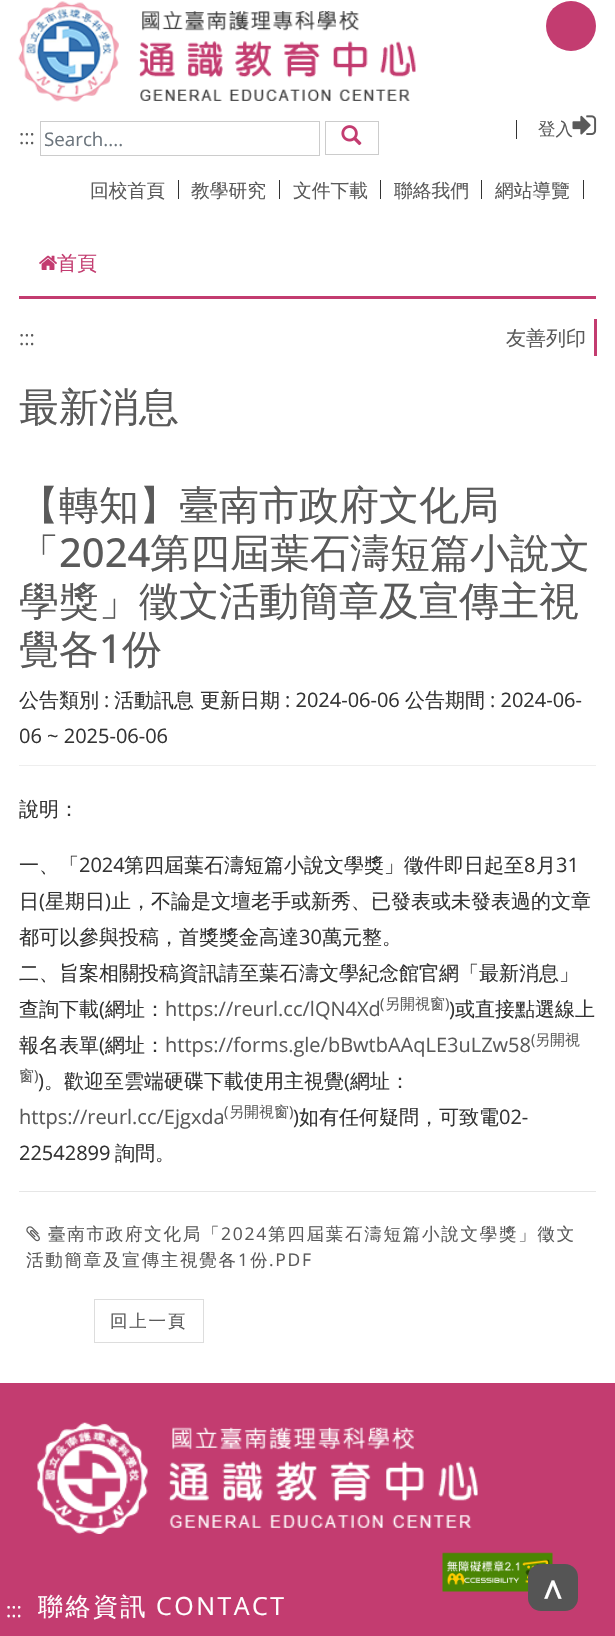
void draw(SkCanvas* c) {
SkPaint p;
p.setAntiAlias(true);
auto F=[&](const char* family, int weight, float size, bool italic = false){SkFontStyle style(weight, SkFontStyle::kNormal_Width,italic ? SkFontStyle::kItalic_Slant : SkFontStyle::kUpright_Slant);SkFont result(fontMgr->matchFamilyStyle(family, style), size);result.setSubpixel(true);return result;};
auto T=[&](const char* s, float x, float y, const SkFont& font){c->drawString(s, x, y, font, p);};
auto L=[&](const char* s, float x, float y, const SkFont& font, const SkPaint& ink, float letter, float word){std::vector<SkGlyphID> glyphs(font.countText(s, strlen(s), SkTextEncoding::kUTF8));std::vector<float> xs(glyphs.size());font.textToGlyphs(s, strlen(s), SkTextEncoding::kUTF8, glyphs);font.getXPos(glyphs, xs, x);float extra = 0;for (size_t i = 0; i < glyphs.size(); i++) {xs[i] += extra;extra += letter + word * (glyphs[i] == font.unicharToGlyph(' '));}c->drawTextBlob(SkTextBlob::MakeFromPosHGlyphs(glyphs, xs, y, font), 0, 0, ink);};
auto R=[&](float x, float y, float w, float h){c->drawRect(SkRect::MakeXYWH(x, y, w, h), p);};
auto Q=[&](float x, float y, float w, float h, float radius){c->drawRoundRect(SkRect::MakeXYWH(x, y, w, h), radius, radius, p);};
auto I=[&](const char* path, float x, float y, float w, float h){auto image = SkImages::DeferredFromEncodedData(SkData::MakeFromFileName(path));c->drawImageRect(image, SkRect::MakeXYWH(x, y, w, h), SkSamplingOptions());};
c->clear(0xffffffff);
I("1.png",18,1,101,101);
I("2.png",138,11,278,90);
p.setColor(0xffc33c70);
c->drawCircle(571,26,25,p);
auto f1 = F("Open Sans",400,20);
p.setColor(0xff5a5a5a);
T(":::",19,144,f1);
p.setStroke(true);
p.setStrokeWidth(1);
p.setColor(0xffcccccc);
c->drawRect(SkRect::MakeXYWH(40.5,121.5,279,34),p);
auto f2 = F("Open Sans",400,18.75);
p.setStroke(false);
p.setColor(0xff6c757d);
T("Search....",44,146,f2);
p.setStroke(true);
p.setColor(0xffcccccc);
c->drawRect(SkRect::MakeXYWH(325.5,121.5,53,33),p);
I("3.png",341,125,21,21);
p.setStroke(false);
p.setColor(0xff333333);
R(516,120,1,19);
auto f3 = F("WenQuanYi Zen Hei",500,17.5);
p.setColor(0xff5a5a5a);
T("登入",538,135,f3);
I("4.png",572,115,25,20);
auto f4 = F("WenQuanYi Zen Hei",500,18.75);
T("回校首頁",90,197,f4);
p.setColor(0xff333333);
R(178,180,1,19);
p.setColor(0xff5a5a5a);
T("教學研究",191,197,f4);
p.setColor(0xff333333);
R(279,180,1,19);
p.setColor(0xff5a5a5a);
T("文件下載",293,197,f4);
p.setColor(0xff333333);
R(380,180,1,19);
p.setColor(0xff5a5a5a);
T("聯絡我們",394,197,f4);
p.setColor(0xff333333);
R(481,180,1,19);
p.setColor(0xff5a5a5a);
T("網站導覽",495,197,f4);
p.setColor(0xff333333);
R(583,180,1,19);
p.setColor(0xffc33c70);
R(19,296,577,3);
I("5.png",39,255,18,15);
auto f5 = F("WenQuanYi Zen Hei",500,20);
T("首頁",57,270,f5);
p.setColor(0xff5a5a5a);
T(":::",19,345,f1);
p.setColor(0xffc33c70);
R(594,319,3,37);
p.setColor(0xff5a5a5a);
T("友善列印",506,345,f5);
auto f6 = F("WenQuanYi Zen Hei",500,40);
T("最新消息",19,421,f6);
p.setColor(0xffeeeeee);
R(19,765,577,1);
p.setColor(0xff5a5a5a);
T("【轉知】臺南市政府文化局",19,519,f6);
T("「",19,567,f6);
auto f7 = F("Open Sans",500,40);
T("2024",59,567,f7);
T("第四屆葉石濤短篇小說文",150,567,f6);
T("學獎」徵文活動簡章及宣傳主視",19,615,f6);
T("覺各",19,663,f6);
T("1",99,663,f7);
T("份",122,663,f6);
p.setColor(0xff333333);
T("公告類別",19,707,f5);
T(":",104,707,f1);
T("活動訊息",114,707,f5);
T("更新日期",200,707,f5);
T(": 2024-06-06",285,707,f1);
T("公告期間",405,707,f5);
T(": 2024-06-",490,707,f1);
T("06 ~ 2025-06-06",19,743,f1);
T("說明：",19,816,f5);
T("一、「",19,872,f5);
T("2024",79,872,f1);
T("第四屆葉石濤短篇小說文學獎」徵件即日起至",124,872,f5);
T("8",524,872,f1);
T("月",536,872,f5);
T("31",556,872,f1);
T("日 星期日 止，不論是文壇老手或新秀、已發表或未發表過的文章",19,908,f5);
T("(",39,908,f1);
T(")",105,908,f1);
T("都可以參與投稿，首獎獎金高達",19,944,f5);
T("30",299,944,f1);
T("萬元整。",322,944,f5);
T("二、旨案相關投稿資訊請至葉石濤文學紀念館官網「最新消息」",19,980,f5);
T("查詢下載 網址：",19,1016,f5);
p.setColor(0xff5a5a5a);
T("https://reurl.cc/lQN4Xd",165,1016,f1);
auto f8 = F("Open Sans",400,15);
T("(",380,1009,f8);
auto f9 = F("WenQuanYi Zen Hei",500,15);
T("另開視窗",385,1009,f9);
T(")",445,1009,f8);
p.setColor(0xff333333);
T("或直接點選線上",455,1016,f5);
T("(",99,1016,f1);
T(")",449,1016,f1);
T("報名表單 網址：",19,1052,f5);
p.setColor(0xff5a5a5a);
T("https://forms.gle/bBwtbAAqLE3uLZw58",165,1052,f1);
T("(",531,1045,f8);
T("另開視",535,1045,f9);
p.setColor(0xff333333);
T("(",99,1052,f1);
p.setColor(0xff5a5a5a);
T("窗",19,1081,f9);
T(")",34,1081,f8);
p.setColor(0xff333333);
T(")",38,1088,f1);
T("。歡迎至雲端硬碟下載使用主視覺",44,1088,f5);
T("(",344,1088,f1);
T("網址：",350,1088,f5);
p.setColor(0xff5a5a5a);
T("https://reurl.cc/Ejgxda",19,1124,f1);
T("(",224,1117,f8);
T("另開視窗",229,1117,f9);
T(")",289,1117,f8);
p.setColor(0xff333333);
T(")",293,1124,f1);
T("如有任何疑問，可致電",299,1124,f5);
T("02-",499,1124,f1);
T("22542899",19,1160,f1);
T("詢問。",115,1160,f5);
p.setColor(0xffe6e6e6);
R(19,1191,577,1);
I("6.png",26,1226,14,16);
p.setColor(0xff5a5a5a);
L("臺南市政府文化局「",48,1240,f3,p,1.75,0);
auto f10 = F("Open Sans",400,17.5);
L("2024",221,1240,f10,p,1.75,0);
L("第四屆葉石濤短篇小說文學獎」徵文",268,1240,f3,p,1.75,0);
L("活動簡章及宣傳主視覺各",26,1266,f3,p,1.75,0);
L("1",238,1266,f10,p,1.75,0);
L("份",250,1266,f3,p,1.75,0);
L(".PDF",269,1266,f10,p,1.75,0);
p.setStroke(true);
p.setColor(0xffdddddd);
c->drawRect(SkRect::MakeXYWH(94.5,1299.5,109,43),p);
p.setStroke(false);
p.setColor(0xff5a5a5a);
L("回上一頁",110,1327,f3,p,1.75,0);
p.setColor(0xffc33c70);
R(0,1383,615,253);
I("7.png",37,1422,442,112);
I("8.png",442,1552,111,40);
p.setColor(0xffffffff);
T(":::",6,1617,f1);
auto f11 = F("WenQuanYi Zen Hei",500,25);
L("聯絡資訊",38,1615,f11,p,2.5,0);
auto f12 = F("Open Sans",400,25);
L("CONTACT",156,1615,f12,p,2.5,0);
p.setColor(0xff555555);
Q(528,1564,50,47,13);
auto f13 = F("WenQuanYi Zen Hei",700,30);
p.setColor(0xffffffff);
T("∧",540,1599,f13);
}
